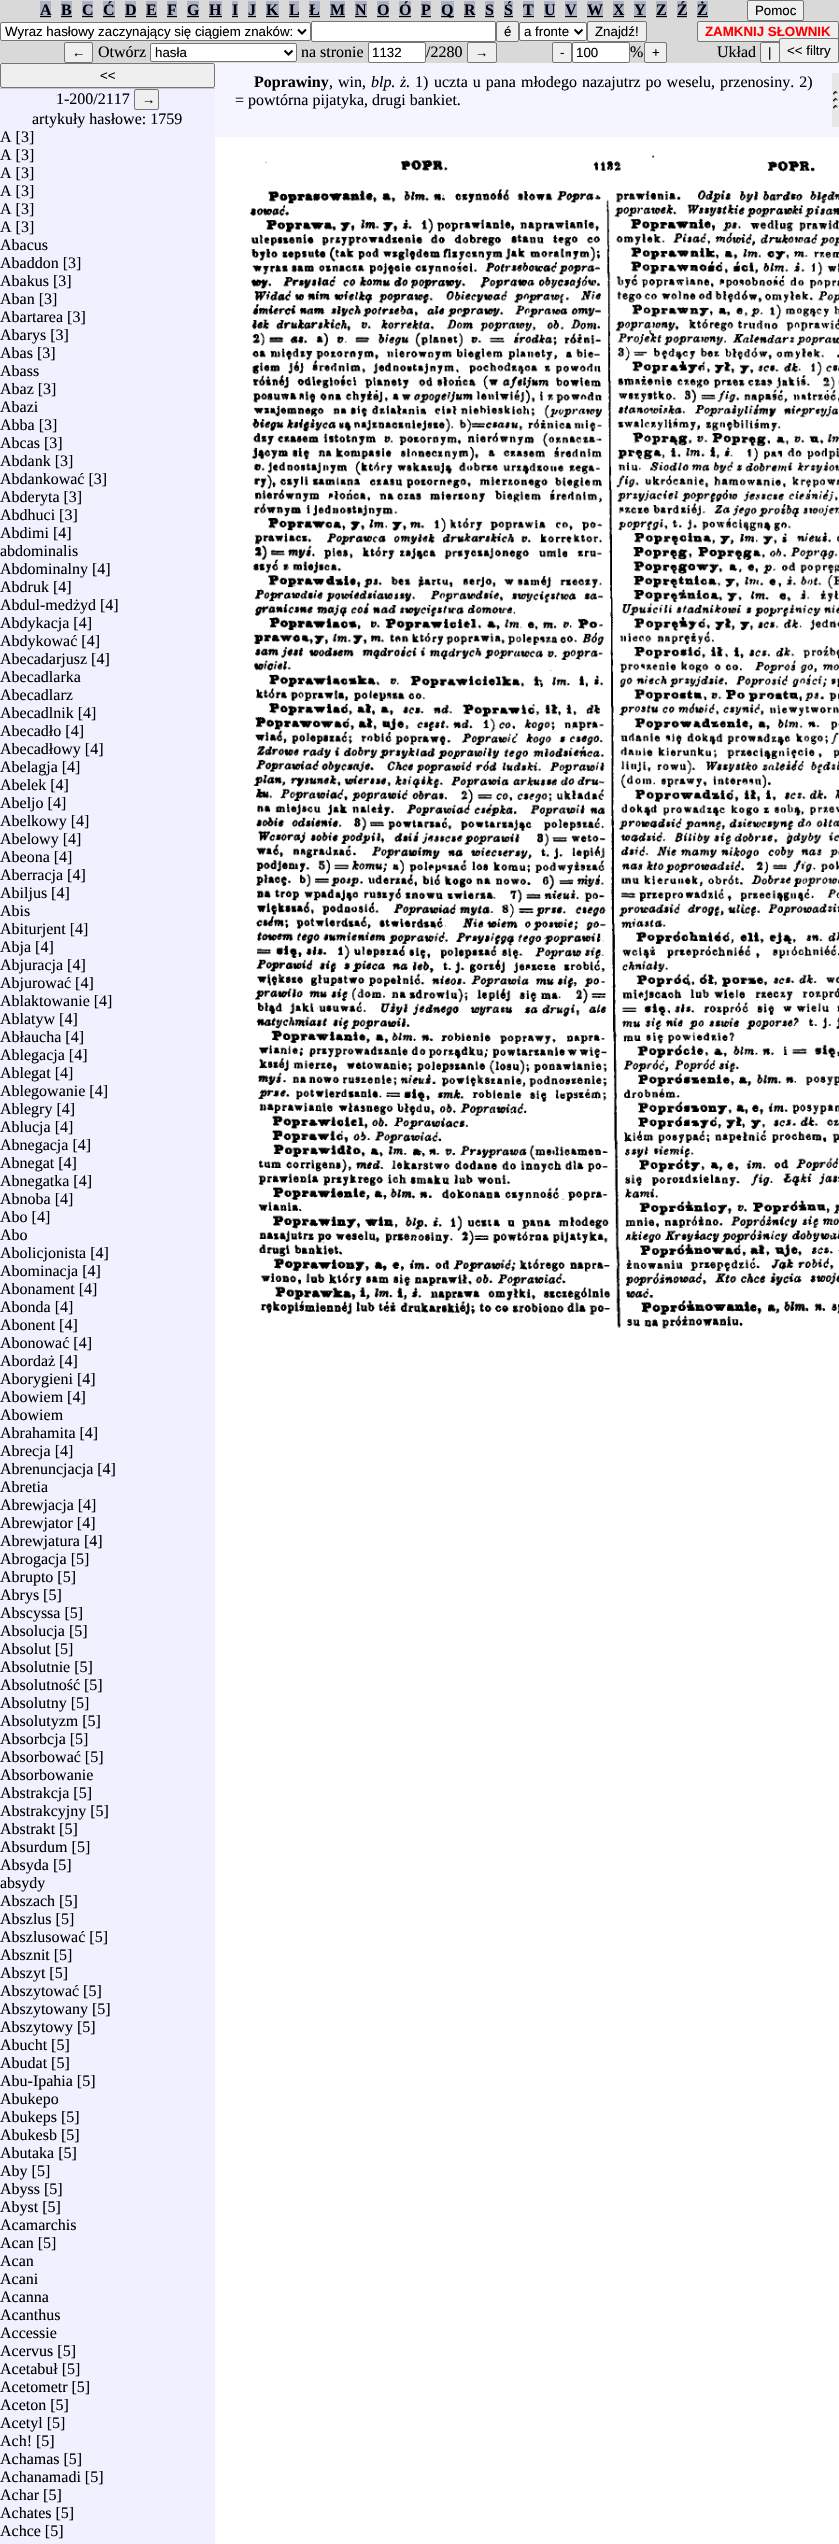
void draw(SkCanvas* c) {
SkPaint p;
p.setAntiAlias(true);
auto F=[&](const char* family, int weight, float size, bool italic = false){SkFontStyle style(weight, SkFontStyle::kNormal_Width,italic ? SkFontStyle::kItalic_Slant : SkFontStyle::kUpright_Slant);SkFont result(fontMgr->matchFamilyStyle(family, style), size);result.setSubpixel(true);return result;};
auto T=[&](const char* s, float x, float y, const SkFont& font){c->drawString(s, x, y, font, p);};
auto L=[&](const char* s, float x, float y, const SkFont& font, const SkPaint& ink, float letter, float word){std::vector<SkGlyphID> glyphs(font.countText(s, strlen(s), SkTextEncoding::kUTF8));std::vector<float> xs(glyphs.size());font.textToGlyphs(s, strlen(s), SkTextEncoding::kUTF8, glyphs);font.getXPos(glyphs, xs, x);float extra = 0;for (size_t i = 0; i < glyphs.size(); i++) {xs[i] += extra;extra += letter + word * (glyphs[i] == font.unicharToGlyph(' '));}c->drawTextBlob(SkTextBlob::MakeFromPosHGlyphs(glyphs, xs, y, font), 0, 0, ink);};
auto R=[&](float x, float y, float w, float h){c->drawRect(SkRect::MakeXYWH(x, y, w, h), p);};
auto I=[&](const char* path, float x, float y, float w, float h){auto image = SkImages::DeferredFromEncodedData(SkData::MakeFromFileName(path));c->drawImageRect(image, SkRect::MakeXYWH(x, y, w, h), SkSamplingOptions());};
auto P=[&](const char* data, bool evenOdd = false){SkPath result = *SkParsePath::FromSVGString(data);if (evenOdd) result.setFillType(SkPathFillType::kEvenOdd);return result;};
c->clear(0xffffffff);
p.setColor(0xffd9d9d9);
R(0,0,839,63);
p.setColor(0xffaeb2c7);
R(40,1,11,17);
auto f1 = F("Liberation Serif",700,16);
p.setColor(0xff000000);
T("A",40,15,f1);
R(40,16,11,1);
p.setColor(0xffaeb2c7);
R(61,1,11,17);
p.setColor(0xff000000);
T("B",61,15,f1);
R(61,16,11,1);
p.setColor(0xffaeb2c7);
R(82,1,11,17);
p.setColor(0xff000000);
T("C",82,15,f1);
R(82,16,11,1);
p.setColor(0xffaeb2c7);
R(103,1,12,17);
p.setColor(0xff000000);
T("Ć",103,15,f1);
R(103,16,12,1);
p.setColor(0xffaeb2c7);
R(125,1,11,17);
p.setColor(0xff000000);
T("D",125,15,f1);
R(125,16,11,1);
p.setColor(0xffaeb2c7);
R(146,1,11,17);
p.setColor(0xff000000);
T("E",146,15,f1);
R(146,16,11,1);
p.setColor(0xffaeb2c7);
R(167,1,10,17);
p.setColor(0xff000000);
T("F",167,15,f1);
R(167,16,10,1);
p.setColor(0xffaeb2c7);
R(187,1,12,17);
p.setColor(0xff000000);
T("G",187,15,f1);
R(187,16,12,1);
p.setColor(0xffaeb2c7);
R(209,1,13,17);
p.setColor(0xff000000);
T("H",209,15,f1);
R(209,16,13,1);
p.setColor(0xffaeb2c7);
R(232,1,6,17);
p.setColor(0xff000000);
T("I",232,15,f1);
R(232,16,6,1);
p.setColor(0xffaeb2c7);
R(248,1,8,17);
p.setColor(0xff000000);
T("J",248,15,f1);
R(248,16,8,1);
p.setColor(0xffaeb2c7);
R(266,1,13,17);
p.setColor(0xff000000);
T("K",266,15,f1);
R(266,16,13,1);
p.setColor(0xffaeb2c7);
R(289,1,10,17);
p.setColor(0xff000000);
T("L",289,15,f1);
R(289,16,10,1);
p.setColor(0xffaeb2c7);
R(309,1,11,17);
p.setColor(0xff000000);
T("Ł",309,15,f1);
R(309,16,11,1);
p.setColor(0xffaeb2c7);
R(330,1,15,17);
p.setColor(0xff000000);
T("M",330,15,f1);
R(330,16,15,1);
p.setColor(0xffaeb2c7);
R(355,1,12,17);
p.setColor(0xff000000);
T("N",355,15,f1);
R(355,16,12,1);
p.setColor(0xffaeb2c7);
R(377,1,12,17);
p.setColor(0xff000000);
T("O",377,15,f1);
R(377,16,12,1);
p.setColor(0xffaeb2c7);
R(399,1,12,17);
p.setColor(0xff000000);
T("Ó",399,15,f1);
R(399,16,12,1);
p.setColor(0xffaeb2c7);
R(421,1,10,17);
p.setColor(0xff000000);
T("P",421,15,f1);
R(421,16,10,1);
p.setColor(0xffaeb2c7);
R(441,1,13,17);
p.setColor(0xff000000);
R(441,16,13,1);
T("Q",441,15,f1);
p.setColor(0xffaeb2c7);
R(464,1,11,17);
p.setColor(0xff000000);
T("R",464,15,f1);
R(464,16,11,1);
p.setColor(0xffaeb2c7);
R(485,1,9,17);
p.setColor(0xff000000);
T("S",485,15,f1);
R(485,16,9,1);
p.setColor(0xffaeb2c7);
R(504,1,9,17);
p.setColor(0xff000000);
T("Ś",504,15,f1);
R(504,16,9,1);
p.setColor(0xffaeb2c7);
R(523,1,11,17);
p.setColor(0xff000000);
T("T",523,15,f1);
R(523,16,11,1);
p.setColor(0xffaeb2c7);
R(544,1,11,17);
p.setColor(0xff000000);
T("U",544,15,f1);
R(544,16,11,1);
p.setColor(0xffaeb2c7);
R(565,1,12,17);
p.setColor(0xff000000);
T("V",565,15,f1);
R(565,16,12,1);
p.setColor(0xffaeb2c7);
R(587,1,16,17);
p.setColor(0xff000000);
T("W",587,15,f1);
R(587,16,16,1);
p.setColor(0xffaeb2c7);
R(613,1,11,17);
p.setColor(0xff000000);
T("X",613,15,f1);
R(613,16,11,1);
p.setColor(0xffaeb2c7);
R(634,1,12,17);
p.setColor(0xff000000);
T("Y",634,15,f1);
R(634,16,12,1);
p.setColor(0xffaeb2c7);
R(656,1,11,17);
p.setColor(0xff000000);
T("Z",656,15,f1);
R(656,16,11,1);
p.setColor(0xffaeb2c7);
R(677,1,10,17);
p.setColor(0xff000000);
T("Ź",677,15,f1);
R(677,16,10,1);
p.setColor(0xffaeb2c7);
R(697,1,11,17);
p.setColor(0xff000000);
T("Ż",697,15,f1);
R(697,16,11,1);
p.setColor(0xffefefef);
c->drawRoundRect(SkRect::MakeXYWH(747.5,.5,56,20),1.5,1.5,p);
p.setStroke(true);
p.setStrokeWidth(1);
p.setColor(0xff767676);
c->drawRoundRect(SkRect::MakeXYWH(747.5,.5,56,20),1.5,1.5,p);
auto f2 = F("Liberation Sans",400,13.3);
p.setStroke(false);
p.setColor(0xff000000);
T("Pomoc",755,15,f2);
p.setColor(0xffffffff);
c->drawRoundRect(SkRect::MakeXYWH(.5,22.5,310,18),1.5,1.5,p);
p.setStroke(true);
p.setColor(0xff767676);
c->drawRoundRect(SkRect::MakeXYWH(.5,22.5,310,18),1.5,1.5,p);
p.setStrokeWidth(2);
p.setColor(0xff000000);
c->drawPath(P("M298 29.5l4 4l4-4"),p);
p.setStroke(false);
T("Wyraz hasłowy zaczynający się ciągiem znaków:",5,36,f2);
p.setColor(0xffffffff);
c->drawRoundRect(SkRect::MakeXYWH(311.5,21.5,184,20),1.5,1.5,p);
p.setStroke(true);
p.setStrokeWidth(1);
p.setColor(0xff767676);
c->drawRoundRect(SkRect::MakeXYWH(311.5,21.5,184,20),1.5,1.5,p);
p.setStroke(false);
p.setColor(0xffefefef);
c->drawRoundRect(SkRect::MakeXYWH(496.5,21.5,22,20),1.5,1.5,p);
p.setStroke(true);
p.setColor(0xff767676);
c->drawRoundRect(SkRect::MakeXYWH(496.5,21.5,22,20),1.5,1.5,p);
p.setStroke(false);
p.setColor(0xff000000);
T("é",504,36,f2);
p.setColor(0xffffffff);
c->drawRoundRect(SkRect::MakeXYWH(519.5,22.5,67,18),1.5,1.5,p);
p.setStroke(true);
p.setColor(0xff767676);
c->drawRoundRect(SkRect::MakeXYWH(519.5,22.5,67,18),1.5,1.5,p);
p.setStrokeWidth(2);
p.setColor(0xff000000);
c->drawPath(P("M574.5 29.5l4 4l4-4"),p);
p.setStroke(false);
T("a fronte",524,36,f2);
p.setColor(0xffefefef);
c->drawRoundRect(SkRect::MakeXYWH(587.5,21.5,59,20),1.5,1.5,p);
p.setStroke(true);
p.setStrokeWidth(1);
p.setColor(0xff767676);
c->drawRoundRect(SkRect::MakeXYWH(587.5,21.5,59,20),1.5,1.5,p);
p.setStroke(false);
p.setColor(0xff000000);
T("Znajdź!",595,36,f2);
p.setColor(0xffefefef);
c->drawRoundRect(SkRect::MakeXYWH(697.5,21.5,141,20),1.5,1.5,p);
p.setStroke(true);
p.setColor(0xff767676);
c->drawRoundRect(SkRect::MakeXYWH(697.5,21.5,141,20),1.5,1.5,p);
auto f3 = F("Liberation Sans",700,13.3);
p.setStroke(false);
p.setColor(0xffff0000);
T("ZAMKNIJ SŁOWNIK",705,36,f3);
p.setColor(0xffefefef);
c->drawRoundRect(SkRect::MakeXYWH(64.5,42.5,28,20),1.5,1.5,p);
p.setStroke(true);
p.setColor(0xff767676);
c->drawRoundRect(SkRect::MakeXYWH(64.5,42.5,28,20),1.5,1.5,p);
p.setStroke(false);
p.setColor(0xff000000);
T("←",72,57,f2);
auto f4 = F("Liberation Serif",400,16);
T("Otwórz",98,57,f4);
p.setColor(0xffffffff);
c->drawRoundRect(SkRect::MakeXYWH(150.5,43.5,146,18),1.5,1.5,p);
p.setStroke(true);
p.setColor(0xff767676);
c->drawRoundRect(SkRect::MakeXYWH(150.5,43.5,146,18),1.5,1.5,p);
p.setStrokeWidth(2);
p.setColor(0xff000000);
c->drawPath(P("M284.5 50.5l4 4l4-4"),p);
p.setStroke(false);
T("hasła",155,57,f2);
T("na stronie",301,57,f4);
p.setColor(0xffffffff);
c->drawRoundRect(SkRect::MakeXYWH(368.5,42.5,57,20),1.5,1.5,p);
p.setStroke(true);
p.setStrokeWidth(1);
p.setColor(0xff767676);
c->drawRoundRect(SkRect::MakeXYWH(368.5,42.5,57,20),1.5,1.5,p);
p.setStroke(false);
p.setColor(0xff000000);
T("1132",372,57,f2);
T("/2280",426,57,f4);
p.setColor(0xffefefef);
c->drawRoundRect(SkRect::MakeXYWH(467.5,42.5,29,20),1.5,1.5,p);
p.setStroke(true);
p.setColor(0xff767676);
c->drawRoundRect(SkRect::MakeXYWH(467.5,42.5,29,20),1.5,1.5,p);
p.setStroke(false);
p.setColor(0xff000000);
T("→",475,57,f2);
p.setColor(0xffefefef);
c->drawRoundRect(SkRect::MakeXYWH(552.5,42.5,19,20),1.5,1.5,p);
p.setStroke(true);
p.setColor(0xff767676);
c->drawRoundRect(SkRect::MakeXYWH(552.5,42.5,19,20),1.5,1.5,p);
p.setStroke(false);
p.setColor(0xff000000);
T("-",560,57,f2);
p.setColor(0xffffffff);
c->drawRoundRect(SkRect::MakeXYWH(572.5,42.5,57,20),1.5,1.5,p);
p.setStroke(true);
p.setColor(0xff767676);
c->drawRoundRect(SkRect::MakeXYWH(572.5,42.5,57,20),1.5,1.5,p);
p.setStroke(false);
p.setColor(0xff000000);
T("100",576,57,f2);
T("%",630,57,f4);
p.setColor(0xffefefef);
c->drawRoundRect(SkRect::MakeXYWH(644.5,42.5,22,20),1.5,1.5,p);
p.setStroke(true);
p.setColor(0xff767676);
c->drawRoundRect(SkRect::MakeXYWH(644.5,42.5,22,20),1.5,1.5,p);
p.setStroke(false);
p.setColor(0xff000000);
T("+",652,57,f2);
T("Układ",717,57,f4);
p.setColor(0xffefefef);
c->drawRoundRect(SkRect::MakeXYWH(760.5,42.5,19,20),1.5,1.5,p);
p.setStroke(true);
p.setColor(0xff767676);
c->drawRoundRect(SkRect::MakeXYWH(760.5,42.5,19,20),1.5,1.5,p);
p.setStroke(false);
p.setColor(0xff000000);
T("|",768,57,f2);
p.setColor(0xffefefef);
c->drawRoundRect(SkRect::MakeXYWH(779.5,38.5,59,24),1.5,1.5,p);
p.setStroke(true);
p.setColor(0xff767676);
c->drawRoundRect(SkRect::MakeXYWH(779.5,38.5,59,24),1.5,1.5,p);
p.setStroke(false);
p.setColor(0xff000000);
T("<< filtry",787,55,f2);
p.setColor(0xffefefef);
c->drawRoundRect(SkRect::MakeXYWH(.5,63.5,214,24),1.5,1.5,p);
p.setStroke(true);
p.setColor(0xff767676);
c->drawRoundRect(SkRect::MakeXYWH(.5,63.5,214,24),1.5,1.5,p);
p.setStroke(false);
p.setColor(0xff000000);
T("<<",100,80,f2);
p.setColor(0xfff5f5ff);
R(215,63,624,74);
p.setColor(0xff000000);
T("Poprawiny",254,87,f1);
T(",",329,87,f4);
T("win,",338,87,f4);
auto f5 = F("Liberation Serif",400,16,true);
T("blp",371,87,f5);
T(".",391,87,f4);
T("ż.",400,87,f5);
T("1)",415,87,f4);
L("uczta u pana młodego nazajutrz po weselu, przenosiny. 2)",434,87,f4,p,0,1);
p.setColor(0xffe6e6e6);
R(832,73,7,54);
I("1.png",833,91,5,19);
p.setColor(0xff000000);
T("= powtórna pijatyka, drugi bankiet.",235,105,f4);
I("2.png",250,155,589,1174);
p.setColor(0xfff0f0ff);
R(0,89,215,2455);
p.setColor(0xffc8c8c8);
R(0,88,215,1);
p.setColor(0xff000000);
T("1-200/2117",56,104,f4);
p.setColor(0xffefefef);
c->drawRoundRect(SkRect::MakeXYWH(134.5,89.5,24,20),1.5,1.5,p);
p.setStroke(true);
p.setColor(0xff767676);
c->drawRoundRect(SkRect::MakeXYWH(134.5,89.5,24,20),1.5,1.5,p);
p.setStroke(false);
p.setColor(0xff000000);
T("→",142,104,f2);
T("artykuły hasłowe: 1759",32,124,f4);
T("A [3]",0,142,f4);
T("A [3]",0,160,f4);
T("A [3]",0,178,f4);
T("A [3]",0,196,f4);
T("A [3]",0,214,f4);
T("A [3]",0,232,f4);
T("Abacus",0,250,f4);
T("Abaddon [3]",0,268,f4);
T("Abakus [3]",0,286,f4);
T("Aban [3]",0,304,f4);
T("Abartarea [3]",0,322,f4);
T("Abarys [3]",0,340,f4);
T("Abas [3]",0,358,f4);
T("Abass",0,376,f4);
T("Abaz [3]",0,394,f4);
T("Abazi",0,412,f4);
T("Abba [3]",0,430,f4);
T("Abcas [3]",0,448,f4);
T("Abdank [3]",0,466,f4);
T("Abdankować [3]",0,484,f4);
T("Abderyta [3]",0,502,f4);
T("Abdhuci [3]",0,520,f4);
T("Abdimi [4]",0,538,f4);
T("abdominalis",0,556,f4);
T("Abdominalny [4]",0,574,f4);
T("Abdruk [4]",0,592,f4);
T("Abdul-medżyd [4]",0,610,f4);
T("Abdykacja [4]",0,628,f4);
T("Abdykować [4]",0,646,f4);
T("Abecadarjusz [4]",0,664,f4);
T("Abecadlarka",0,682,f4);
T("Abecadlarz",0,700,f4);
T("Abecadlnik [4]",0,718,f4);
T("Abecadło [4]",0,736,f4);
T("Abecadłowy [4]",0,754,f4);
T("Abelagja [4]",0,772,f4);
T("Abelek [4]",0,790,f4);
T("Abeljo [4]",0,808,f4);
T("Abelkowy [4]",0,826,f4);
T("Abelowy [4]",0,844,f4);
T("Abeona [4]",0,862,f4);
T("Aberracja [4]",0,880,f4);
T("Abiljus [4]",0,898,f4);
T("Abis",0,916,f4);
T("Abiturjent [4]",0,934,f4);
T("Abja [4]",0,952,f4);
T("Abjuracja [4]",0,970,f4);
T("Abjurować [4]",0,988,f4);
T("Ablaktowanie [4]",0,1006,f4);
T("Ablatyw [4]",0,1024,f4);
T("Abłaucha [4]",0,1042,f4);
T("Ablegacja [4]",0,1060,f4);
T("Ablegat [4]",0,1078,f4);
T("Ablegowanie [4]",0,1096,f4);
T("Ablegry [4]",0,1114,f4);
T("Ablucja [4]",0,1132,f4);
T("Abnegacja [4]",0,1150,f4);
T("Abnegat [4]",0,1168,f4);
T("Abnegatka [4]",0,1186,f4);
T("Abnoba [4]",0,1204,f4);
T("Abo [4]",0,1222,f4);
T("Abo",0,1240,f4);
T("Abolicjonista [4]",0,1258,f4);
T("Abominacja [4]",0,1276,f4);
T("Abonament [4]",0,1294,f4);
T("Abonda [4]",0,1312,f4);
T("Abonent [4]",0,1330,f4);
T("Abonować [4]",0,1348,f4);
T("Abordaż [4]",0,1366,f4);
T("Aborygieni [4]",0,1384,f4);
T("Abowiem [4]",0,1402,f4);
T("Abowiem",0,1420,f4);
T("Abrahamita [4]",0,1438,f4);
T("Abrecja [4]",0,1456,f4);
T("Abrenuncjacja [4]",0,1474,f4);
T("Abretia",0,1492,f4);
T("Abrewjacja [4]",0,1510,f4);
T("Abrewjator [4]",0,1528,f4);
T("Abrewjatura [4]",0,1546,f4);
T("Abrogacja [5]",0,1564,f4);
T("Abrupto [5]",0,1582,f4);
T("Abrys [5]",0,1600,f4);
T("Abscyssa [5]",0,1618,f4);
T("Absolucja [5]",0,1636,f4);
T("Absolut [5]",0,1654,f4);
T("Absolutnie [5]",0,1672,f4);
T("Absolutność [5]",0,1690,f4);
T("Absolutny [5]",0,1708,f4);
T("Absolutyzm [5]",0,1726,f4);
T("Absorbcja [5]",0,1744,f4);
T("Absorbować [5]",0,1762,f4);
T("Absorbowanie",0,1780,f4);
T("Abstrakcja [5]",0,1798,f4);
T("Abstrakcyjny [5]",0,1816,f4);
T("Abstrakt [5]",0,1834,f4);
T("Absurdum [5]",0,1852,f4);
T("Absyda [5]",0,1870,f4);
T("absydy",0,1888,f4);
T("Abszach [5]",0,1906,f4);
T("Abszlus [5]",0,1924,f4);
T("Abszlusować [5]",0,1942,f4);
T("Absznit [5]",0,1960,f4);
T("Abszyt [5]",0,1978,f4);
T("Abszytować [5]",0,1996,f4);
T("Abszytowany [5]",0,2014,f4);
T("Abszytowy [5]",0,2032,f4);
T("Abucht [5]",0,2050,f4);
T("Abudat [5]",0,2068,f4);
T("Abu-Ipahia [5]",0,2086,f4);
T("Abukepo",0,2104,f4);
T("Abukeps [5]",0,2122,f4);
T("Abukesb [5]",0,2140,f4);
T("Abutaka [5]",0,2158,f4);
T("Aby [5]",0,2176,f4);
T("Abyss [5]",0,2194,f4);
T("Abyst [5]",0,2212,f4);
T("Acamarchis",0,2230,f4);
T("Acan [5]",0,2248,f4);
T("Acan",0,2266,f4);
T("Acani",0,2284,f4);
T("Acanna",0,2302,f4);
T("Acanthus",0,2320,f4);
T("Accessie",0,2338,f4);
T("Acervus [5]",0,2356,f4);
T("Acetabuł [5]",0,2374,f4);
T("Acetometr [5]",0,2392,f4);
T("Aceton [5]",0,2410,f4);
T("Acetyl [5]",0,2428,f4);
T("Ach! [5]",0,2446,f4);
T("Achamas [5]",0,2464,f4);
T("Achanamadi [5]",0,2482,f4);
T("Achar [5]",0,2500,f4);
T("Achates [5]",0,2518,f4);
T("Achce [5]",0,2536,f4);
}
